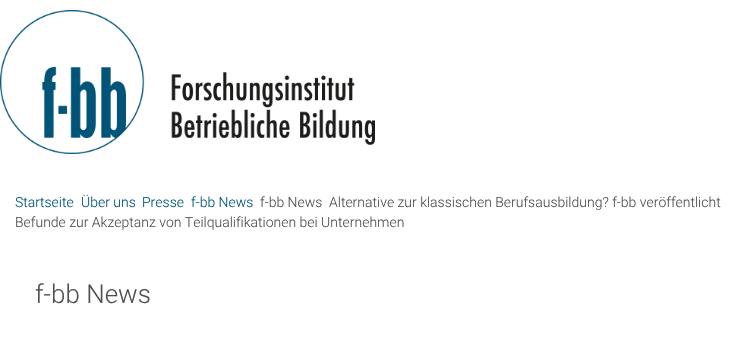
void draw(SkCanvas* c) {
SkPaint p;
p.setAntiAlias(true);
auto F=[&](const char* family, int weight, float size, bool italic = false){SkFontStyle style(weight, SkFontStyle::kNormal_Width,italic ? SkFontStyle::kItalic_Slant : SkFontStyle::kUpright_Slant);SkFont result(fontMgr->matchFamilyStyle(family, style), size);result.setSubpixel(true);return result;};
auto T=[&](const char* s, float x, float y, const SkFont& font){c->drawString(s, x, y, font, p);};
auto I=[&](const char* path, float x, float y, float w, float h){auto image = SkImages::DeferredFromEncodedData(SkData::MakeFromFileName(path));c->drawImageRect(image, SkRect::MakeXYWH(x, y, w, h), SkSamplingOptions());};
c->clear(0xffffffff);
I("1.png",0,10,375,144);
auto f1 = F("Roboto",300,14);
p.setColor(0xff00547a);
T("Startseite",15,207,f1);
T("Über uns",81,207,f1);
T("Presse",142,207,f1);
T("f-bb News",191,207,f1);
p.setColor(0xff4f4f4f);
T("f-bb News",260,207,f1);
T("Alternative zur klassischen Berufsausbildung? f-bb veröffentlicht",329,207,f1);
T("Befunde zur Akzeptanz von Teilqualifikationen bei Unternehmen",15,227,f1);
auto f2 = F("Roboto",300,26);
T("f-bb News",35,303,f2);
}
